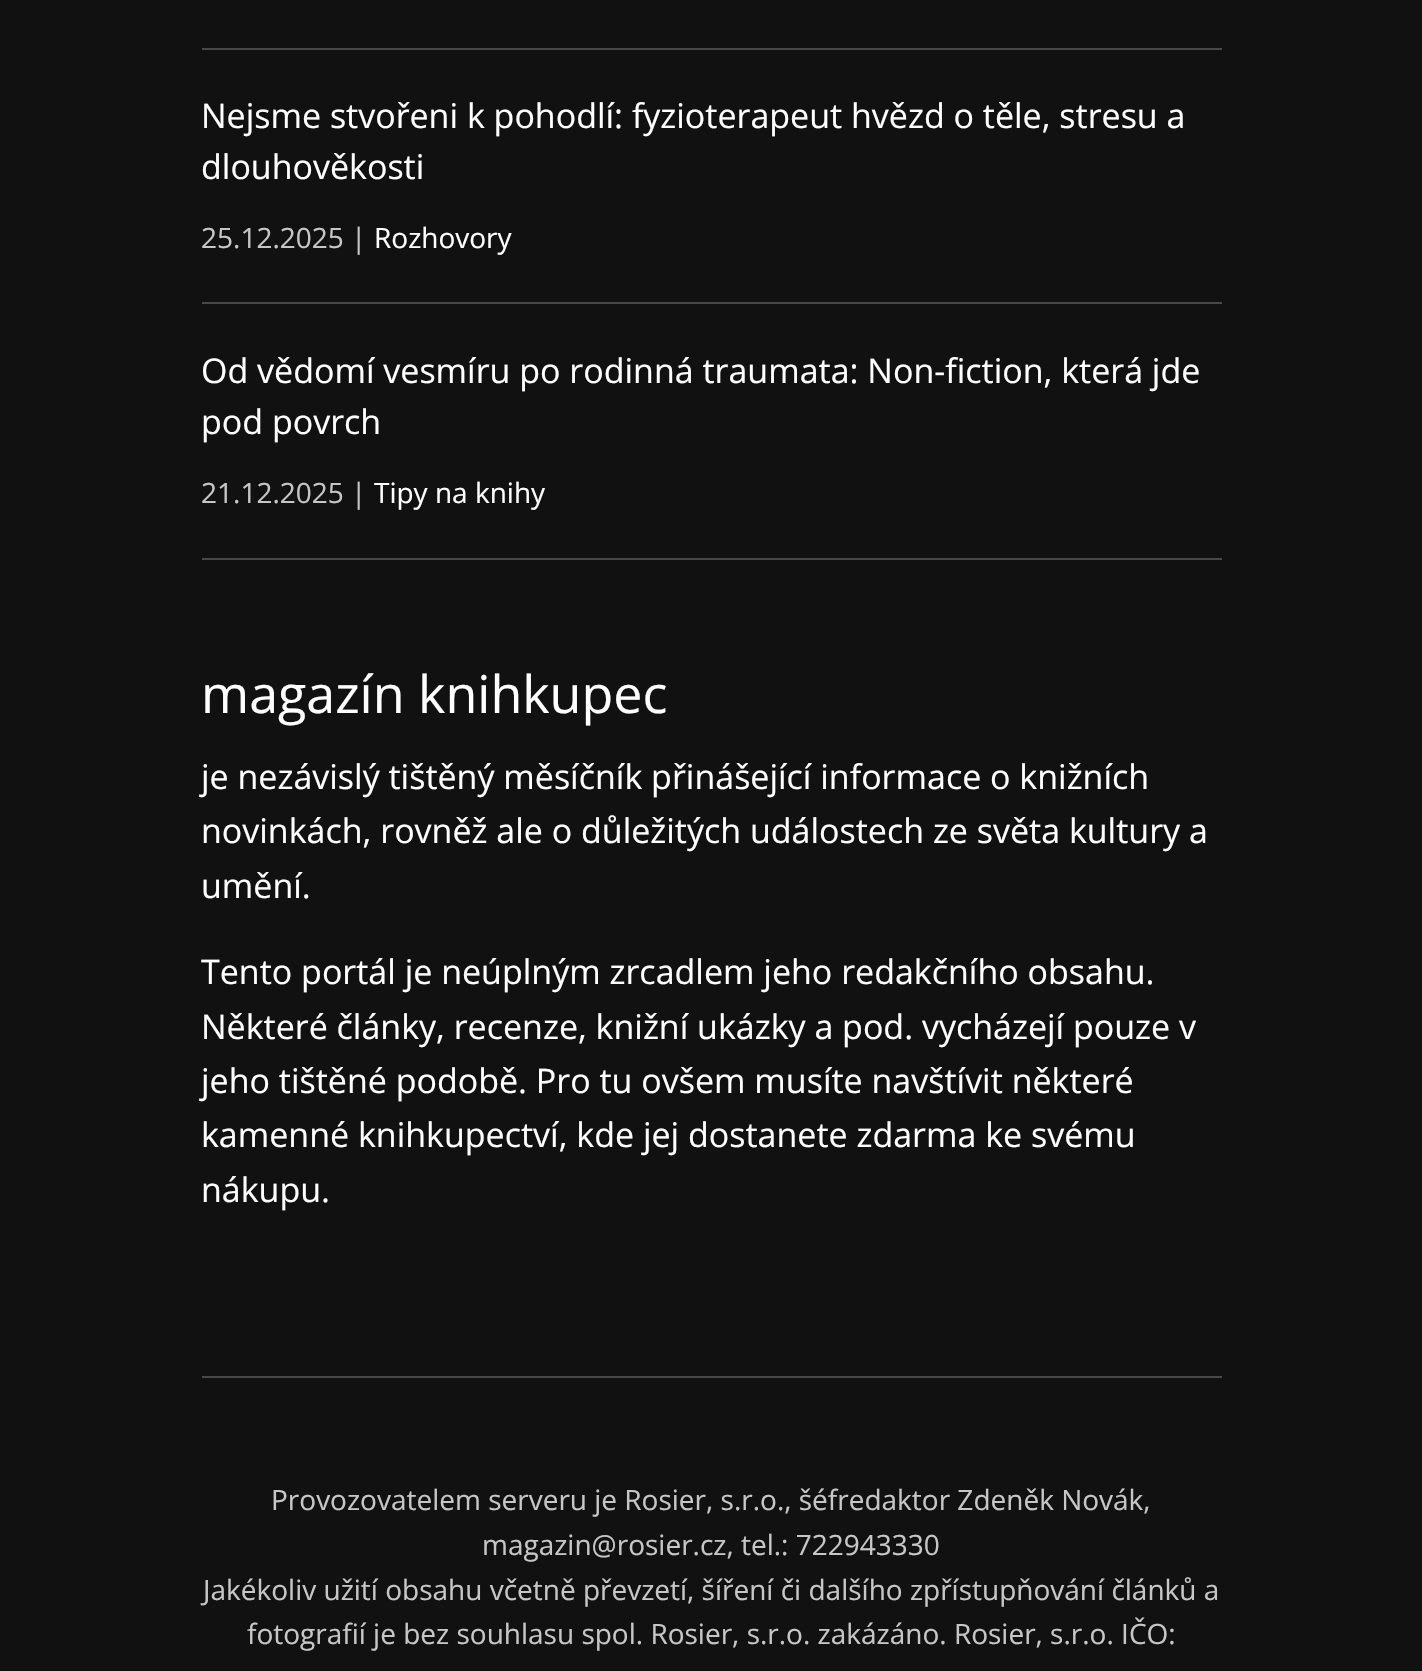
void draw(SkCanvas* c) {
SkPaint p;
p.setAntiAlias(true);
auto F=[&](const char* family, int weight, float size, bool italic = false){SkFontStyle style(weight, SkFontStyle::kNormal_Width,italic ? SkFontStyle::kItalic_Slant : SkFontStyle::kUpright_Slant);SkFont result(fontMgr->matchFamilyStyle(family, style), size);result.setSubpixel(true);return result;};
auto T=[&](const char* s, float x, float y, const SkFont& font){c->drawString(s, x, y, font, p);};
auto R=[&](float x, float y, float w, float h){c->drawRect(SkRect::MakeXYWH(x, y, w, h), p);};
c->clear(0xff111111);
p.setColor(0xff474747);
R(202,48,1020,2);
R(202,302,1020,2);
auto f1 = F("Open Sans",400,34);
p.setColor(0xffffffff);
T("Nejsme stvořeni k pohodlí: fyzioterapeut hvězd o těle, stresu a",201,128,f1);
T("dlouhověkosti",201,179,f1);
auto f2 = F("Open Sans",400,28);
p.setColor(0xffc6c6c6);
T("25.12.2025 |",201,248,f2);
p.setColor(0xffffffff);
T("Rozhovory",374,248,f2);
p.setColor(0xff474747);
R(202,558,1020,2);
p.setColor(0xffffffff);
T("Od vědomí vesmíru po rodinná traumata: Non-fiction, která jde",201,383,f1);
T("pod povrch",201,434,f1);
p.setColor(0xffc6c6c6);
T("21.12.2025 |",201,503,f2);
p.setColor(0xffffffff);
T("Tipy na knihy",374,503,f2);
auto f3 = F("Open Sans",400,52);
T("magazín knihkupec",201,713,f3);
T("je nezávislý tištěný měsíčník přinášející informace o knižních",201,789,f1);
T("novinkách, rovněž ale o důležitých událostech ze světa kultury a",201,843,f1);
T("umění.",201,898,f1);
T("Tento portál je neúplným zrcadlem jeho redakčního obsahu.",201,984,f1);
T("Některé články, recenze, knižní ukázky a pod. vycházejí pouze v",201,1039,f1);
T("jeho tištěné podobě. Pro tu ovšem musíte navštívit některé",201,1093,f1);
T("kamenné knihkupectví, kde jej dostanete zdarma ke svému",201,1147,f1);
T("nákupu.",201,1202,f1);
p.setColor(0xff474747);
R(202,1376,1020,2);
p.setColor(0xffc6c6c6);
T("Provozovatelem serveru je Rosier, s.r.o., šéfredaktor Zdeněk Novák,",271,1510,f2);
T("magazin@rosier.cz, tel.: 722943330",482,1555,f2);
T("Jakékoliv užití obsahu včetně převzetí, šíření či dalšího zpřístupňování článků a",203,1600,f2);
T("fotografií je bez souhlasu spol. Rosier, s.r.o. zakázáno. Rosier, s.r.o. IČO:",247,1644,f2);
}
